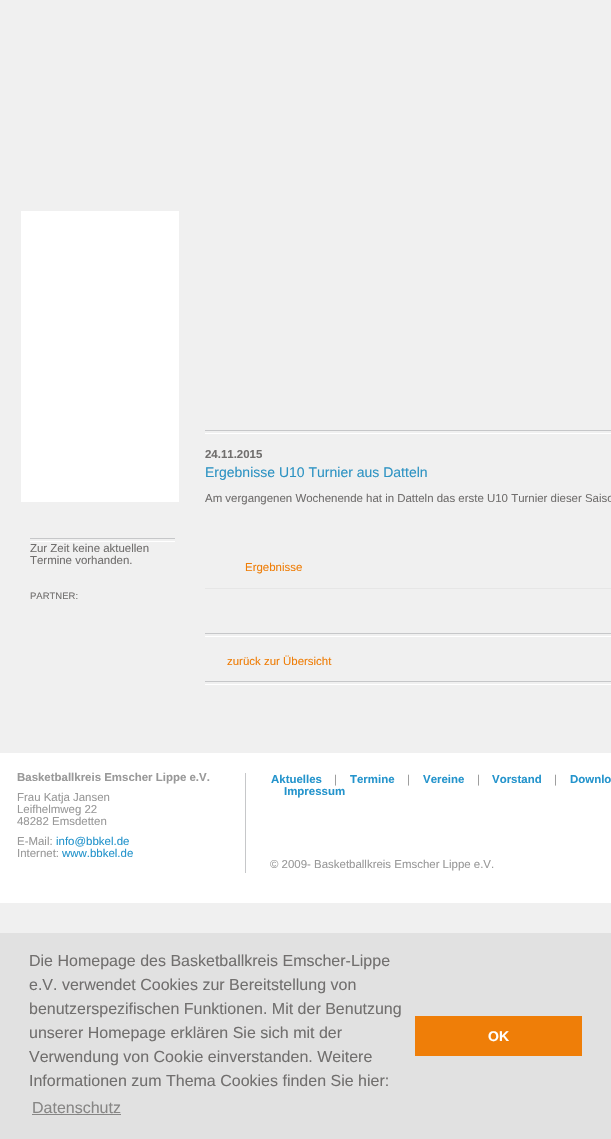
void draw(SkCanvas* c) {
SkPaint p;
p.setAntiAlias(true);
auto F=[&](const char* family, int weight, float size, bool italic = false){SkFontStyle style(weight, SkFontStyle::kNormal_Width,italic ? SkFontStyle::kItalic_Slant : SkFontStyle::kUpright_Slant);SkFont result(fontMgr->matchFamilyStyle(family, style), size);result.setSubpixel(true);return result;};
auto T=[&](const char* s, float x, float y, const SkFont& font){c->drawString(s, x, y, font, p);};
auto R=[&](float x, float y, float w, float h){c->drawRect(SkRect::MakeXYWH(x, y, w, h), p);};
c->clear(0xfff0f0f0);
p.setColor(0xffffffff);
R(21,211,158,291);
p.setColor(0xffc6c7c9);
R(30,538,145,1);
p.setColor(0xffffffff);
R(30,541,145,1);
auto f1 = F("Liberation Sans",400,11.45);
p.setColor(0xff716f6e);
T("Zur Zeit keine aktuellen",30,552,f1);
T("Termine vorhanden.",30,564,f1);
auto f2 = F("Liberation Sans",400,9.5);
T("PARTNER:",30,599,f2);
p.setColor(0xffc6c7c9);
R(205,430,406,1);
p.setColor(0xffffffff);
R(205,433,406,1);
auto f3 = F("Liberation Sans",700,11.45);
p.setColor(0xff716f6e);
T("24.11.2015",205,458,f3);
auto f4 = F("Liberation Sans",400,14);
p.setColor(0xff2d93c3);
T("Ergebnisse U10 Turnier aus Datteln",205,477,f4);
p.setColor(0xff716f6e);
T("Am vergangenen Wochenende hat in Datteln das erste U10 Turnier dieser Saiso",205,502,f1);
p.setColor(0xffe6e6e6);
R(205,588,406,1);
p.setColor(0xffef7e08);
T("Ergebnisse",245,571,f1);
p.setColor(0xffc6c7c9);
R(205,633,406,1);
p.setColor(0xffffffff);
R(205,636,406,1);
p.setColor(0xffef7e08);
T("zurück zur Übersicht",227,665,f1);
p.setColor(0xffc6c7c9);
R(205,681,406,1);
p.setColor(0xffffffff);
R(205,684,406,1);
R(0,753,611,150);
p.setColor(0xff999999);
T("Basketballkreis Emscher Lippe e.V.",17,781,f3);
T("Frau Katja Jansen",17,801,f1);
T("Leifhelmweg 22",17,813,f1);
T("48282 Emsdetten",17,825,f1);
T("E-Mail:",17,845,f1);
p.setColor(0xff2494cc);
T("info@bbkel.de",56,845,f1);
p.setColor(0xff999999);
T("Internet:",17,857,f1);
p.setColor(0xff2494cc);
T("www.bbkel.de",62,857,f1);
p.setColor(0xffc6c7c9);
R(245,773,1,100);
p.setColor(0xff2494cc);
T("Aktuelles",271,783,f3);
p.setColor(0xff999999);
T("|",334,783,f1);
p.setColor(0xff2494cc);
T("Termine",350,783,f3);
p.setColor(0xff999999);
T("|",407,783,f1);
p.setColor(0xff2494cc);
T("Vereine",423,783,f3);
p.setColor(0xff999999);
T("|",477,783,f1);
p.setColor(0xff2494cc);
T("Vorstand",492,783,f3);
p.setColor(0xff999999);
T("|",554,783,f1);
p.setColor(0xff2494cc);
T("Downlo",570,783,f3);
T("Impressum",284,795,f3);
p.setColor(0xff999999);
T("© 2009- Basketballkreis Emscher Lippe e.V.",270,868,f1);
p.setColor(0xffe1e1e1);
R(0,933,611,206);
auto f5 = F("Liberation Sans",400,16);
p.setColor(0xff716f6e);
T("Die Homepage des Basketballkreis Emscher-Lippe",29,966,f5);
T("e.V. verwendet Cookies zur Bereitstellung von",29,990,f5);
T("benutzerspezifischen Funktionen. Mit der Benutzung",29,1014,f5);
T("unserer Homepage erklären Sie sich mit der",29,1038,f5);
T("Verwendung von Cookie einverstanden. Weitere",29,1062,f5);
T("Informationen zum Thema Cookies finden Sie hier:",29,1086,f5);
p.setColor(0xff878685);
T("Datenschutz",32,1113,f5);
R(32,1114,89,1);
p.setColor(0xffef7e08);
R(415,1016,167,40);
auto f6 = F("Liberation Sans",700,14);
p.setColor(0xffffffff);
T("OK",488,1041,f6);
}
